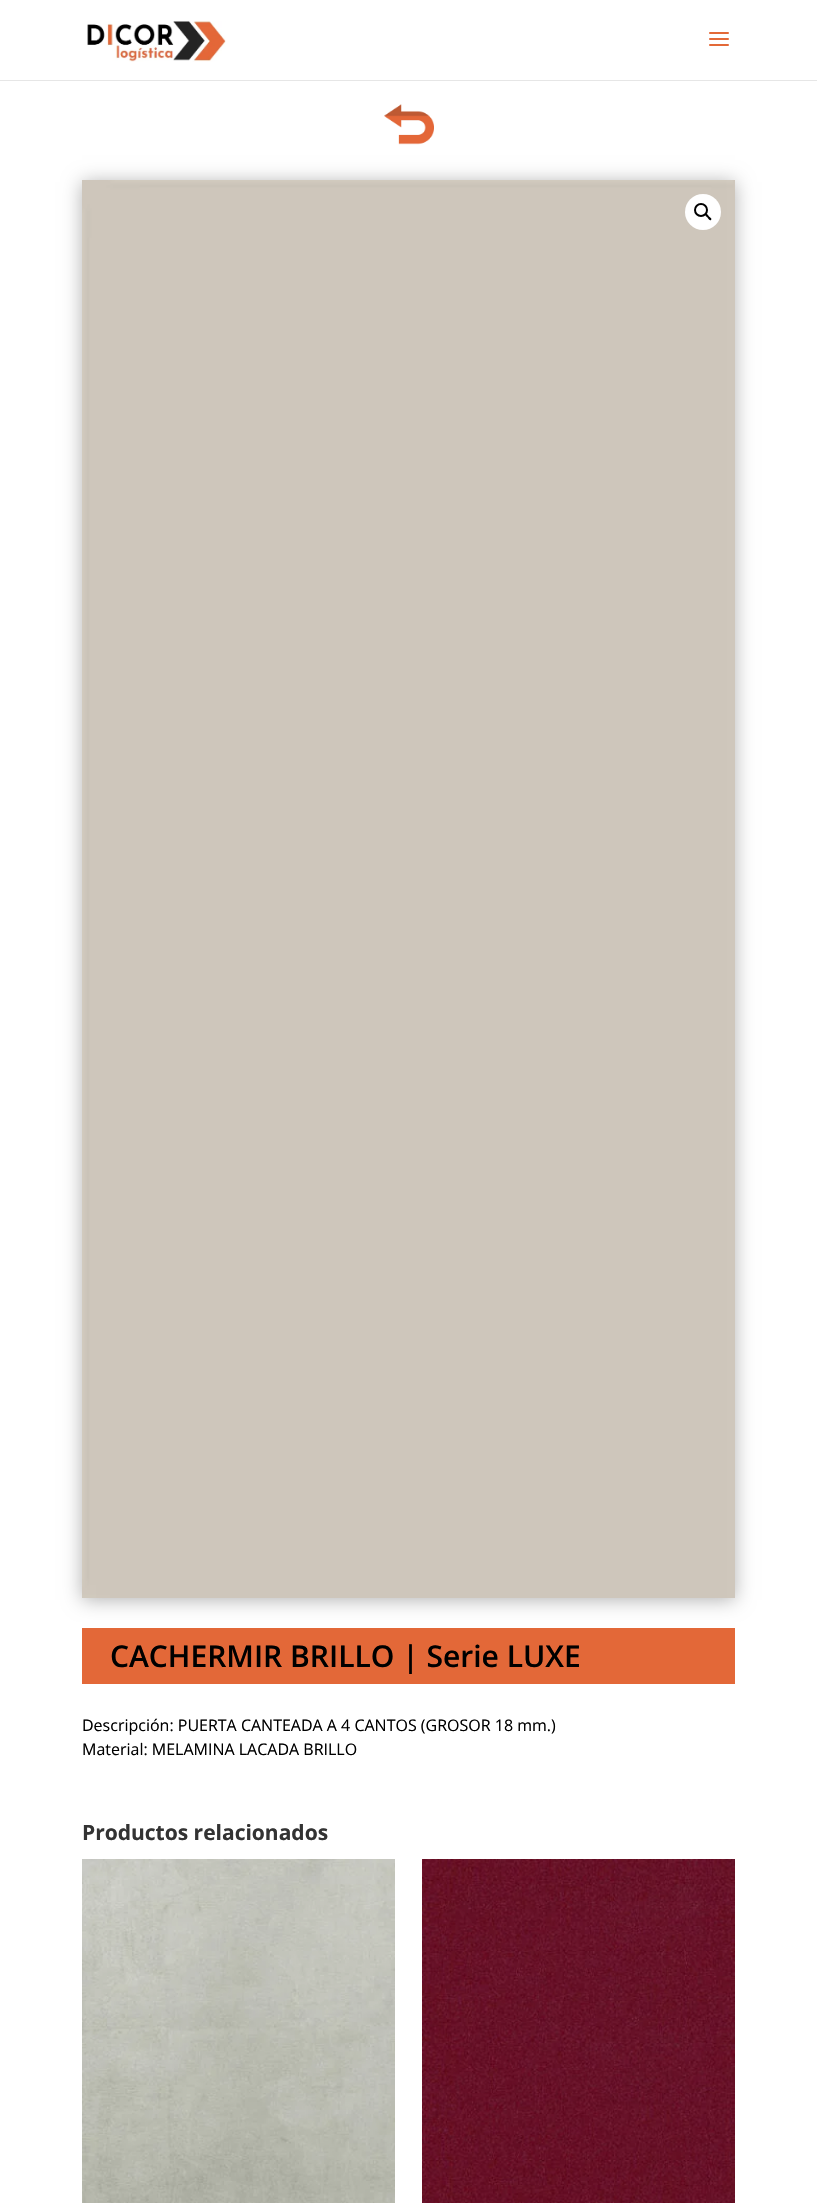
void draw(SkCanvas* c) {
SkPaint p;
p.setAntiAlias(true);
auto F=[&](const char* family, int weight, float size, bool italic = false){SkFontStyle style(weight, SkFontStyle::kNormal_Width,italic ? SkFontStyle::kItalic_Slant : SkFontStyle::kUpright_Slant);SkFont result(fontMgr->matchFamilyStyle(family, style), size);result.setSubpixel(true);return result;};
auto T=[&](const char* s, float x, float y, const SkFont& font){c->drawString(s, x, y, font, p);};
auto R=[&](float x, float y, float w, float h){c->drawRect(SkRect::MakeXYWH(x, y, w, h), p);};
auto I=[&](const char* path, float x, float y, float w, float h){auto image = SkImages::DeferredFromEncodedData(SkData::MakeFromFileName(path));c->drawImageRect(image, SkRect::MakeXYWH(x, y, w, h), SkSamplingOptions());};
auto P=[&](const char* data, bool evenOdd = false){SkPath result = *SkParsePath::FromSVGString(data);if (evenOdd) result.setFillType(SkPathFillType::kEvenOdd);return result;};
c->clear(0xffffffff);
p.setColor(0xffe6e6e6);
R(0,80,817,1);
I("1.png",87,21,139,41);
I("2.png",709,32,20,14);
I("3.png",384,104,50,41);
p.setColor(0x4d000000);
p.setMaskFilter(SkMaskFilter::MakeBlur(kNormal_SkBlurStyle, 9));
c->drawRect(SkRect::MakeXYWH(82,182,653,1418),p);
p.setMaskFilter(nullptr);
I("4.png",82,180,653,1418);
p.setColor(0xffffffff);
c->drawCircle(703,212,18,p);
p.setStroke(true);
p.setStrokeWidth(2);
p.setColor(0xff000000);
c->drawCircle(701,210,6,p);
p.setStroke(false);
c->drawPath(P("M705.5 214c1-1 3 1.5 3.5 2.5c.5 .5 3.5 2 2 3.5c-1 1-3-1.5-3.5-2.5c-.5-.5-3-2-2-3.5z"),p);
p.setColor(0xffe36838);
R(82,1628,653,56);
auto f1 = F("Open Sans",600,30);
p.setColor(0xff000000);
T("CACHERMIR BRILLO | Serie LUXE",110,1667,f1);
auto f2 = F("Open Sans",400,16);
T("Descripción: PUERTA CANTEADA A 4 CANTOS (GROSOR 18 mm.)",82,1731,f2);
T("Material: MELAMINA LACADA BRILLO",82,1755,f2);
auto f3 = F("Open Sans",700,21);
p.setColor(0xff333333);
T("Productos relacionados",82,1840,f3);
I("5.png",82,1859,313,344);
I("6.png",422,1859,313,344);
}
